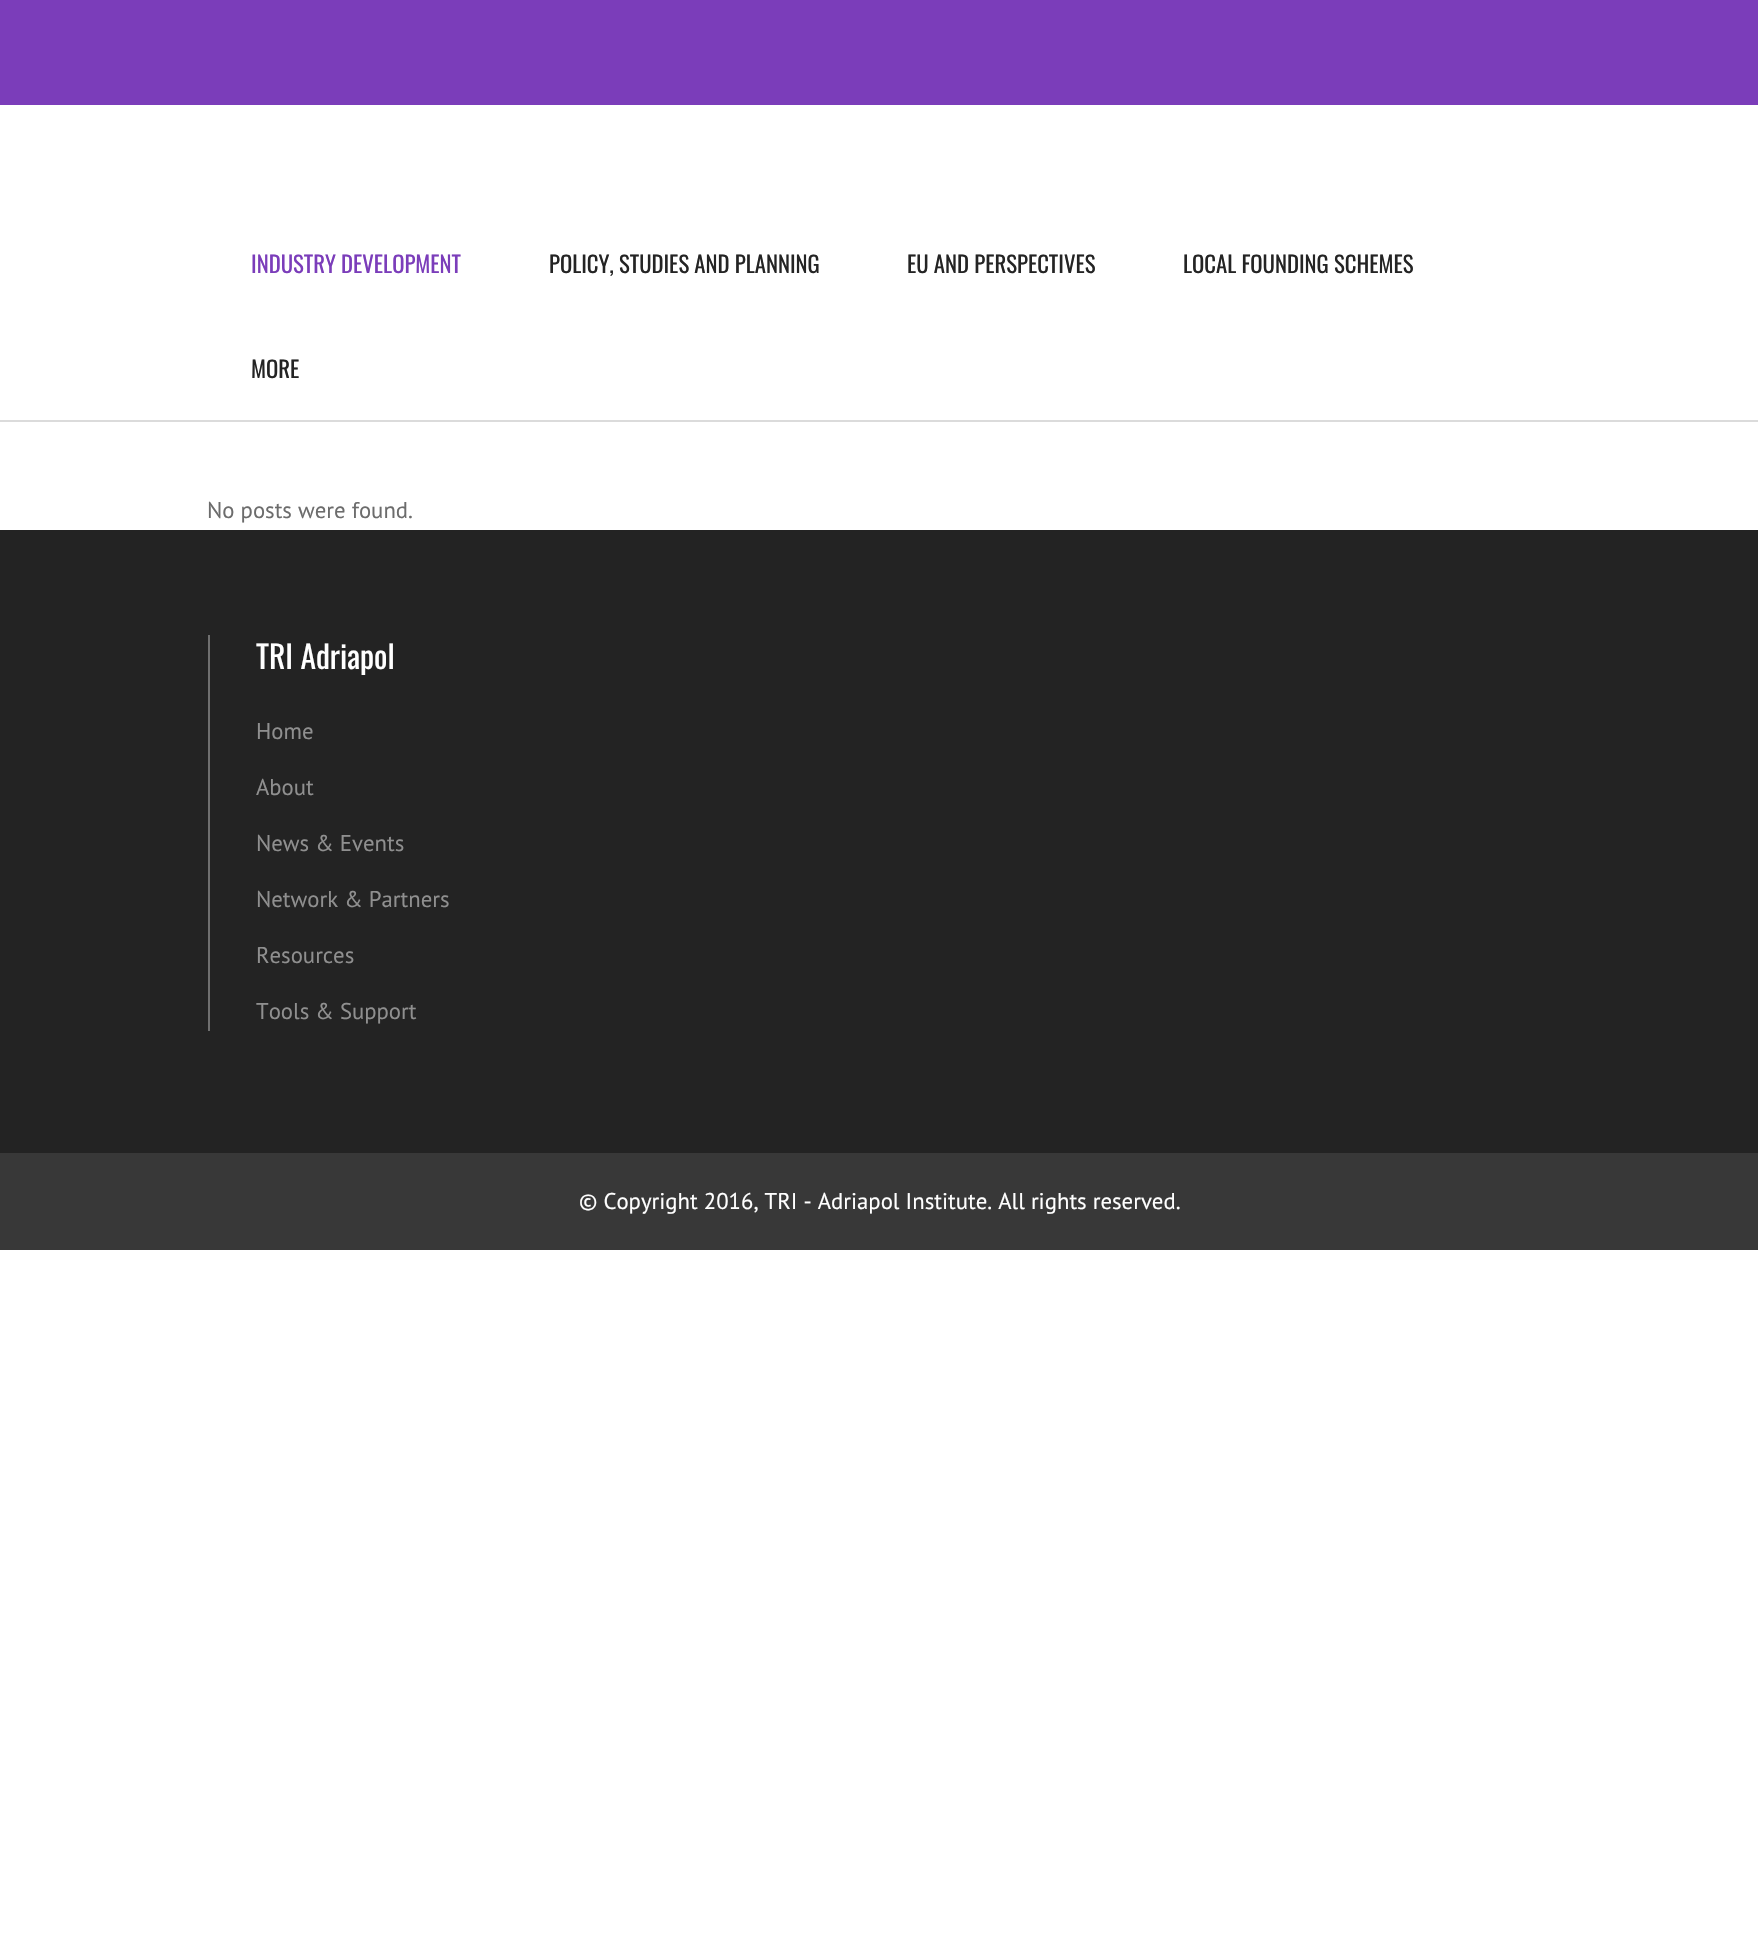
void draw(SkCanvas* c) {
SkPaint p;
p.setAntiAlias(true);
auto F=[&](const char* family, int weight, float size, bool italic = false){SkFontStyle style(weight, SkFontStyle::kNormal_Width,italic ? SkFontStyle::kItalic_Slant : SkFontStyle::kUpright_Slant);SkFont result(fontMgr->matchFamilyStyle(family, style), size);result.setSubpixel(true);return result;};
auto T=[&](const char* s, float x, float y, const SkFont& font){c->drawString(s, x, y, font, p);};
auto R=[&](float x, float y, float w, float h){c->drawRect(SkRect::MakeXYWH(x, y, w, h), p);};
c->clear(0xffffffff);
p.setColor(0xffdbdbdb);
R(0,420,1758,2);
p.setColor(0xff7b3dba);
R(0,0,1758,105);
auto f1 = F("Oswald",400,22.75);
T("INDUSTRY DEVELOPMENT",251,273,f1);
p.setColor(0xff242424);
T("POLICY, STUDIES AND PLANNING",549,273,f1);
T("EU AND PERSPECTIVES",907,273,f1);
T("LOCAL FOUNDING SCHEMES",1183,273,f1);
T("MORE",251,378,f1);
auto f2 = F("PT Sans",400,22.75);
p.setColor(0xff6c6c6c);
T("No posts were found.",207,518,f2);
p.setColor(0xff232323);
R(0,530,1758,623);
p.setColor(0xff6f6f6f);
R(208,635,2,396);
auto f3 = F("Oswald",400,31.5);
p.setColor(0xffffffff);
T("TRI Adriapol",256,669,f3);
p.setColor(0xff8f8f8f);
T("Home",256,739,f2);
T("About",256,795,f2);
T("News & Events",256,851,f2);
T("Network & Partners",256,907,f2);
T("Resources",256,963,f2);
T("Tools & Support",256,1019,f2);
p.setColor(0xff383838);
R(0,1153,1758,97);
p.setColor(0xffffffff);
T("© Copyright 2016, TRI - Adriapol Institute. All rights reserved.",579,1209,f2);
}
